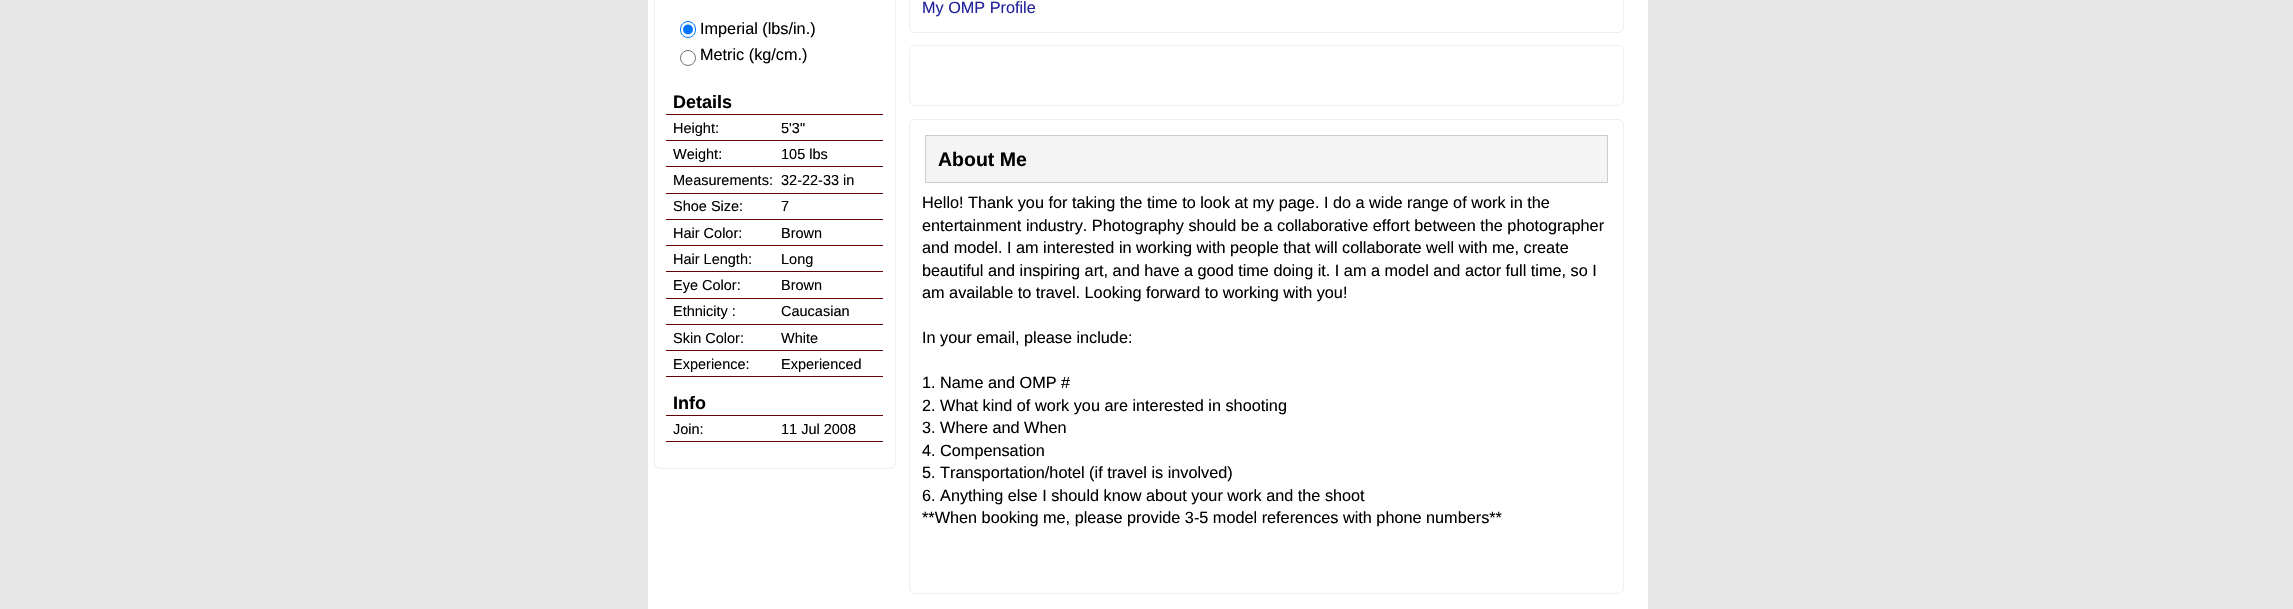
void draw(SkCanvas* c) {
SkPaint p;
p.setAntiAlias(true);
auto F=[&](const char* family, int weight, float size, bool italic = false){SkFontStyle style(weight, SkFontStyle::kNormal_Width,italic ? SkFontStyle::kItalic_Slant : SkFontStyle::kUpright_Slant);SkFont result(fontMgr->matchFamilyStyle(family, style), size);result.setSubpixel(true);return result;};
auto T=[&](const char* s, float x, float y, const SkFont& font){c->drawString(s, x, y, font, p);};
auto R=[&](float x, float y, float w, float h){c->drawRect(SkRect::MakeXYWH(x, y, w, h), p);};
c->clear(0xffe7e7e7);
p.setColor(0xffffffff);
R(648,0,1000,609);
p.setStroke(true);
p.setStrokeWidth(1);
p.setColor(0xffefefef);
c->drawRoundRect(SkRect::MakeXYWH(909.5,-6.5,714,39),5.5,5.5,p);
auto f1 = F("Liberation Sans",400,16.25);
p.setStroke(false);
p.setColor(0xff22229c);
T("My OMP Profile",922,13,f1);
p.setStroke(true);
p.setColor(0xffefefef);
c->drawRoundRect(SkRect::MakeXYWH(654.5,-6.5,241,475),5.5,5.5,p);
p.setColor(0xff0075ff);
c->drawRoundRect(SkRect::MakeXYWH(680.5,21.5,15,16),7.5,7.5,p);
p.setStroke(false);
c->drawCircle(688,29.5,5,p);
p.setColor(0xff000000);
T("Imperial (lbs/in.)",700,34,f1);
p.setStroke(true);
p.setColor(0xff767676);
c->drawCircle(688,58,7.5,p);
p.setStroke(false);
p.setColor(0xff000000);
T("Metric (kg/cm.)",700,60,f1);
p.setColor(0xff660000);
R(666,114,217,1);
auto f2 = F("Liberation Sans",700,18);
p.setColor(0xff000000);
T("Details",673,108,f2);
auto f3 = F("Liberation Sans",400,14.5);
T("Height:",673,133,f3);
p.setColor(0xff660000);
R(666,140,217,1);
p.setColor(0xff000000);
T("5'3\"",781,133,f3);
T("Weight:",673,159,f3);
p.setColor(0xff660000);
R(666,166,217,1);
p.setColor(0xff000000);
T("105 lbs",781,159,f3);
T("Measurements:",673,185,f3);
p.setColor(0xff660000);
R(666,193,217,1);
p.setColor(0xff000000);
T("32-22-33 in",781,185,f3);
T("Shoe Size:",673,211,f3);
p.setColor(0xff660000);
R(666,219,217,1);
p.setColor(0xff000000);
T("7",781,211,f3);
T("Hair Color:",673,238,f3);
p.setColor(0xff660000);
R(666,245,217,1);
p.setColor(0xff000000);
T("Brown",781,238,f3);
T("Hair Length:",673,264,f3);
p.setColor(0xff660000);
R(666,271,217,1);
p.setColor(0xff000000);
T("Long",781,264,f3);
T("Eye Color:",673,290,f3);
p.setColor(0xff660000);
R(666,298,217,1);
p.setColor(0xff000000);
T("Brown",781,290,f3);
T("Ethnicity :",673,316,f3);
p.setColor(0xff660000);
R(666,324,217,1);
p.setColor(0xff000000);
T("Caucasian",781,316,f3);
T("Skin Color:",673,343,f3);
p.setColor(0xff660000);
R(666,350,217,1);
p.setColor(0xff000000);
T("White",781,343,f3);
T("Experience:",673,369,f3);
p.setColor(0xff660000);
R(666,376,217,1);
p.setColor(0xff000000);
T("Experienced",781,369,f3);
p.setColor(0xff660000);
R(666,415,217,1);
p.setColor(0xff000000);
T("Info",673,409,f2);
T("Join:",673,434,f3);
p.setColor(0xff660000);
R(666,441,217,1);
p.setColor(0xff000000);
T("11 Jul 2008",781,434,f3);
p.setStroke(true);
p.setColor(0xffefefef);
c->drawRoundRect(SkRect::MakeXYWH(909.5,45.5,714,60),5.5,5.5,p);
c->drawRoundRect(SkRect::MakeXYWH(909.5,119.5,714,474),5.5,5.5,p);
p.setStroke(false);
p.setColor(0xfff4f4f5);
c->drawRect(SkRect::MakeXYWH(925.5,135.5,682,47),p);
p.setStroke(true);
p.setColor(0xffcccccc);
c->drawRect(SkRect::MakeXYWH(925.5,135.5,682,47),p);
auto f4 = F("Liberation Sans",700,19.5);
p.setStroke(false);
p.setColor(0xff000000);
T("About Me",938,166,f4);
T("Hello! Thank you for taking the time to look at my page. I do a wide range of work in the",922,208,f1);
T("entertainment industry. Photography should be a collaborative effort between the photographer",922,231,f1);
T("and model. I am interested in working with people that will collaborate well with me, create",922,253,f1);
T("beautiful and inspiring art, and have a good time doing it. I am a model and actor full time, so I",922,276,f1);
T("am available to travel. Looking forward to working with you!",922,298,f1);
T("In your email, please include:",922,343,f1);
T("1. Name and OMP #",922,388,f1);
T("2. What kind of work you are interested in shooting",922,411,f1);
T("3. Where and When",922,433,f1);
T("4. Compensation",922,456,f1);
T("5. Transportation/hotel (if travel is involved)",922,478,f1);
T("6. Anything else I should know about your work and the shoot",922,501,f1);
T("**When booking me, please provide 3-5 model references with phone numbers**",922,523,f1);
}
